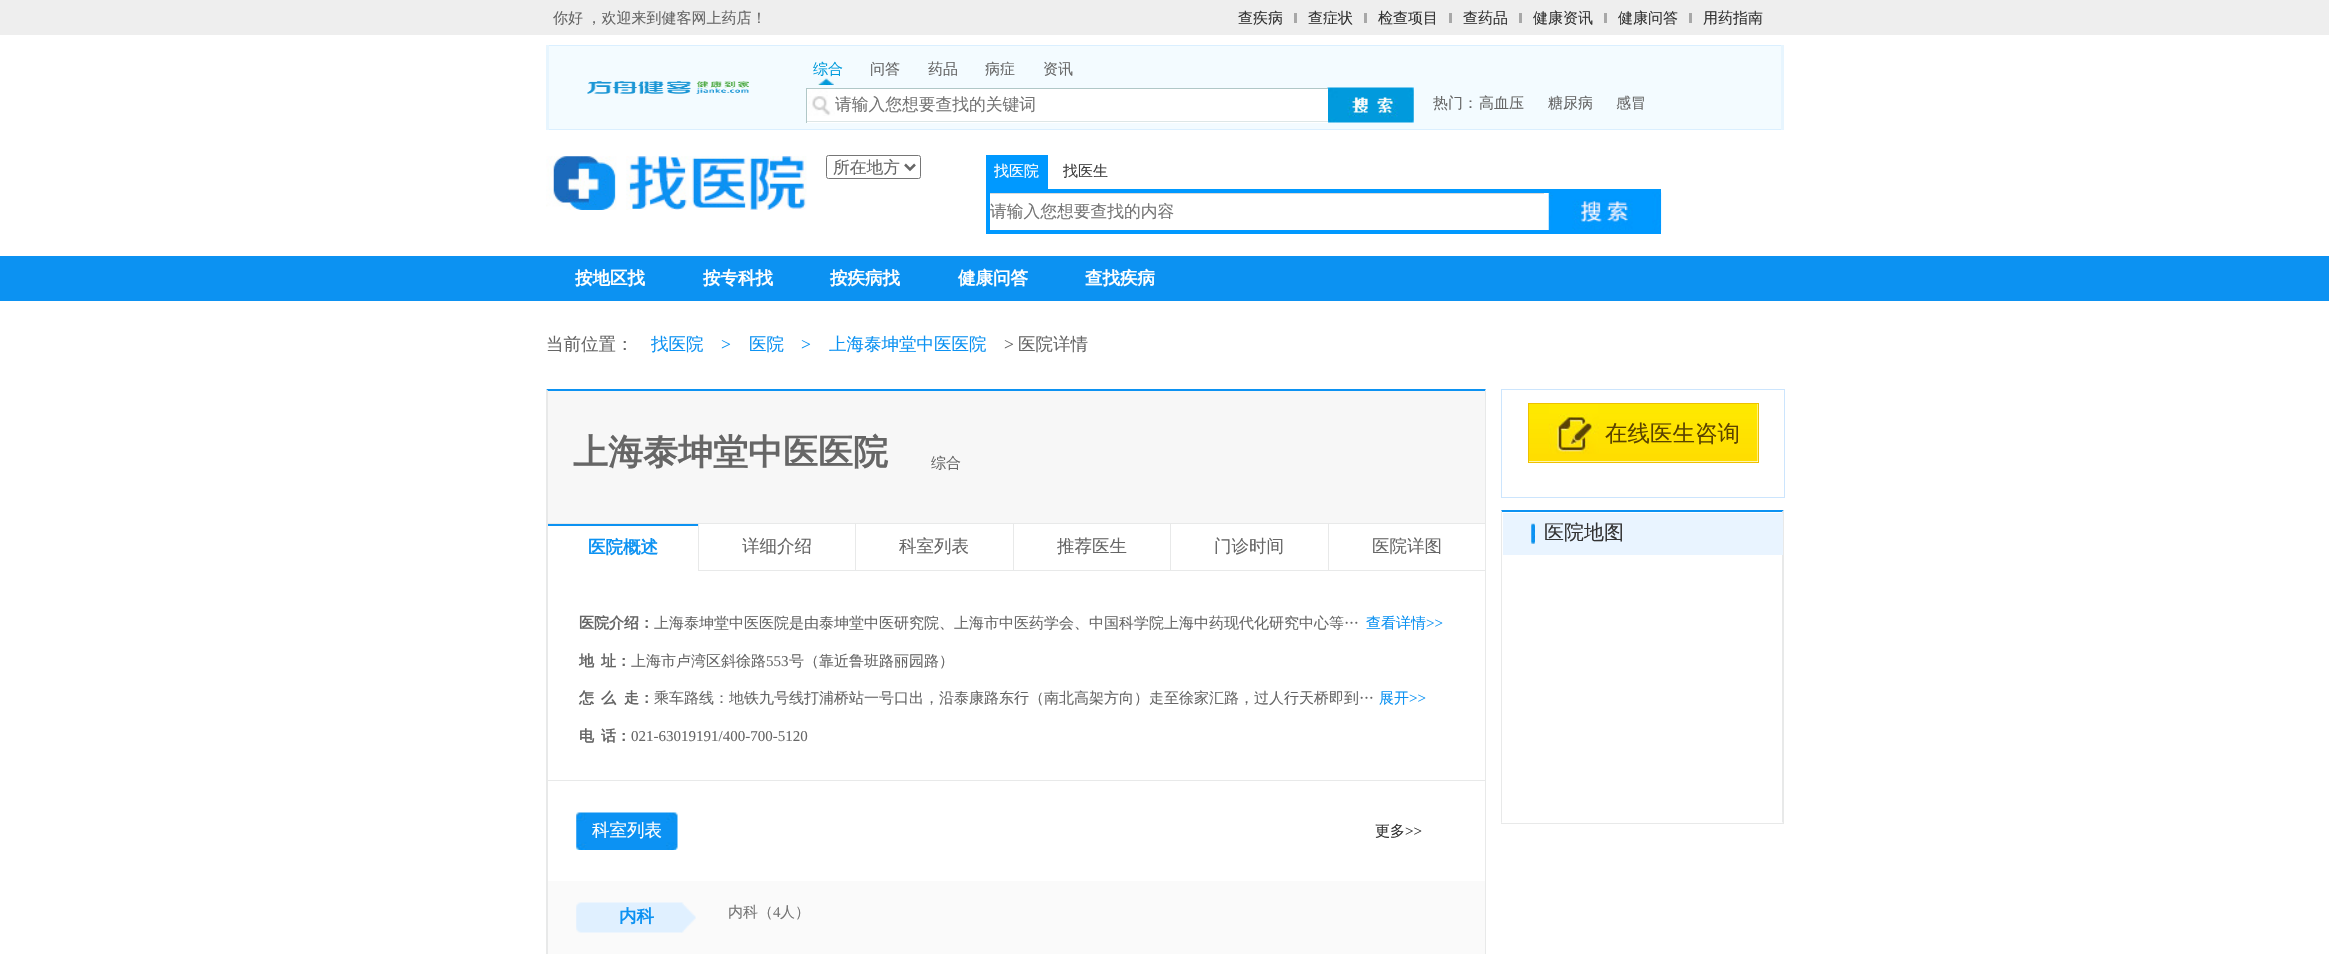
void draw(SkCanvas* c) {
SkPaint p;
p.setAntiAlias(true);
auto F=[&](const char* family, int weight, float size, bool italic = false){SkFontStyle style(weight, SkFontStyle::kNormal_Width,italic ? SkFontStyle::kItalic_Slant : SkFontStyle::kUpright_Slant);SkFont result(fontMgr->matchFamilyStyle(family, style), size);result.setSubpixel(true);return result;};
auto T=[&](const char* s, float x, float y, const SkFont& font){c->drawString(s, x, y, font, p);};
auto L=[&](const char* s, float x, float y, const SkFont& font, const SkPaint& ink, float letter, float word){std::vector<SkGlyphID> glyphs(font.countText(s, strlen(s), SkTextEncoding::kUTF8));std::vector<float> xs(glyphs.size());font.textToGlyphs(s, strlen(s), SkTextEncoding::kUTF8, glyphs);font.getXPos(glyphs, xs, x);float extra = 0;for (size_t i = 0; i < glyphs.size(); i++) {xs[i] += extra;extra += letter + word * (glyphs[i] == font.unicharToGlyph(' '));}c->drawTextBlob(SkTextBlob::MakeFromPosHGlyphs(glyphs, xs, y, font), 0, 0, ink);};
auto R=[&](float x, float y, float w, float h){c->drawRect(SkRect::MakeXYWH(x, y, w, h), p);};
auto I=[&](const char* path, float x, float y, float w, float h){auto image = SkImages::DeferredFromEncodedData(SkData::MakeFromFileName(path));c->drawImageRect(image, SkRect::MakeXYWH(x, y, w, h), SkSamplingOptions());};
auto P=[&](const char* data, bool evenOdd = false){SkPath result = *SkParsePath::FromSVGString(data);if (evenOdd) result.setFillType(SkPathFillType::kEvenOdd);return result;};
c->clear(0xffffffff);
p.setColor(0xffeeeeee);
R(0,0,2329,35);
auto f1 = F("WenQuanYi Zen Hei",500,15);
p.setColor(0xff666666);
L("你好 ，欢迎来到健客网上药店！",553,23,f1,p,0,-1);
p.setColor(0xff333333);
T("查疾病",1238,23,f1);
p.setColor(0xffa8a8a8);
R(1294,13,3,10);
p.setColor(0xff333333);
T("查症状",1308,23,f1);
p.setColor(0xffa8a8a8);
R(1364,13,3,10);
p.setColor(0xff333333);
T("检查项目",1378,23,f1);
p.setColor(0xffa8a8a8);
R(1449,13,3,10);
p.setColor(0xff333333);
T("查药品",1463,23,f1);
p.setColor(0xffa8a8a8);
R(1519,13,3,10);
p.setColor(0xff333333);
T("健康资讯",1533,23,f1);
p.setColor(0xffa8a8a8);
R(1604,13,3,10);
p.setColor(0xff333333);
T("健康问答",1618,23,f1);
p.setColor(0xffa8a8a8);
R(1689,13,3,10);
p.setColor(0xff333333);
T("用药指南",1703,23,f1);
p.setColor(0xfff3fbff);
R(549,46,1232,83);
p.setColor(0xffdaefff);
R(546,45,1238,1);
R(546,129,1238,1);
p.setColor(0xffe7f5fe);
R(546,45,3,85);
I("1.png",587,81,162,13);
p.setColor(0xff009bdc);
T("综合",813,74,f1);
I("2.png",818,78,16,7);
p.setColor(0xff666666);
T("问答",870,74,f1);
T("药品",928,74,f1);
T("病症",985,74,f1);
T("资讯",1043,74,f1);
I("4.png",1327,87,87,36);
p.setColor(0xffffffff);
R(807,89,521,34);
p.setColor(0xffb0c7c7);
R(806,88,522,1);
p.setColor(0xffdde6e6);
R(806,121,522,1);
p.setColor(0xffb0c7c7);
R(806,88,1,35);
I("3.png",808,88,27,28);
auto f2 = F("WenQuanYi Zen Hei",500,16.75);
p.setColor(0xff757575);
T("请输入您想要查找的关键词",835,110,f2);
p.setColor(0xffe7f5fe);
R(1781,45,3,85);
p.setColor(0xff666666);
T("热门：",1433,108,f1);
T("高血压",1479,108,f1);
T("糖尿病",1548,108,f1);
T("感冒",1616,108,f1);
I("5.png",546,156,261,54);
p.setStroke(true);
p.setStrokeWidth(1);
p.setColor(0xff767676);
c->drawRoundRect(SkRect::MakeXYWH(826.5,155.5,94,23),2,2,p);
p.setStrokeWidth(2.5);
p.setColor(0xff666666);
c->drawPath(P("M905 164.5l5 5l5-5"),p);
p.setStroke(false);
T("所在地方",833,173,f2);
p.setColor(0xff0099ff);
R(986,155,62,34);
p.setColor(0xffffffff);
T("找医院",994,176,f1);
p.setColor(0xff3c3c3c);
T("找医生",1063,176,f1);
p.setColor(0xff0099ff);
R(986,189,675,4);
R(986,230,675,4);
R(986,189,4,45);
p.setColor(0xffd9d9d9);
R(990,193,554,1);
p.setColor(0xff757575);
T("请输入您想要查找的内容",990,217,f2);
I("6.png",1548,192,114,38);
p.setColor(0xff0c92f2);
R(0,256,2329,45);
auto f3 = F("WenQuanYi Zen Hei",700,17.5);
p.setColor(0xffffffff);
T("按地区找",575,284,f3);
T("按专科找",703,284,f3);
T("按疾病找",830,284,f3);
T("健康问答",958,284,f3);
T("查找疾病",1085,284,f3);
auto f4 = F("WenQuanYi Zen Hei",500,17.5);
p.setColor(0xff666666);
T("当前位置：",546,350,f4);
p.setColor(0xff0c92f2);
T("找医院",651,350,f4);
auto f5 = F("Liberation Serif",400,17.5);
T(">",721,350,f5);
T("医院",749,350,f4);
T(">",801,350,f5);
T("上海泰坤堂中医医院",829,350,f4);
p.setColor(0xff666666);
T(">",1004,350,f5);
T("医院详情",1018,350,f4);
p.setColor(0xff0c92f2);
c->drawPath(P("M546 389h940l-1 2h-937z"),p);
p.setColor(0xffe8e9e9);
c->drawPath(P("M1486 389v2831l-1-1v-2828z"),p);
c->drawPath(P("M546 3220v-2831l2 2v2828z"),p);
R(548,780,937,1);
p.setColor(0xfff7f7f7);
R(548,391,937,132);
auto f6 = F("WenQuanYi Zen Hei",700,35);
p.setColor(0xff666666);
T("上海泰坤堂中医医院",573,464,f6);
T("综合",931,468,f1);
p.setColor(0xffe8e9e9);
R(548,523,937,1);
p.setColor(0xff0c92f2);
c->drawPath(P("M548 524h151l-1 2h-150z"),p);
T("医院概述",588,553,f3);
p.setColor(0xffe8e9e9);
R(855,524,1,47);
R(698,570,158,1);
R(698,524,1,47);
p.setColor(0xff666666);
T("详细介绍",742,552,f4);
p.setColor(0xffe8e9e9);
R(1013,524,1,47);
R(855,570,159,1);
p.setColor(0xff666666);
T("科室列表",899,552,f4);
p.setColor(0xffe8e9e9);
R(1170,524,1,47);
R(1013,570,158,1);
p.setColor(0xff666666);
T("推荐医生",1057,552,f4);
p.setColor(0xffe8e9e9);
R(1328,524,1,47);
R(1170,570,316,1);
p.setColor(0xff666666);
T("门诊时间",1214,552,f4);
T("医院详图",1372,552,f4);
auto f7 = F("WenQuanYi Zen Hei",700,15);
T("医院介绍：",579,628,f7);
T("上海泰坤堂中医医院是由泰坤堂中医研究院、上海市中医药学会、中国科学院上海中药现代化研究中心等…",654,628,f1);
p.setColor(0xff0c92f2);
T("查看详情",1366,628,f1);
auto f8 = F("Liberation Serif",400,15);
T(">>",1426,628,f8);
p.setColor(0xff666666);
T("地",579,666,f7);
T("址：",601,666,f7);
T("上海市卢湾区斜徐路",631,666,f1);
T("553",766,666,f8);
T("号（靠近鲁班路丽园路）",789,666,f1);
T("怎",579,703,f7);
T("么",601,703,f7);
T("走：",624,703,f7);
T("乘车路线：地铁九号线打浦桥站一号口出，沿泰康路东行（南北高架方向）走至徐家汇路，过人行天桥即到…",654,703,f1);
p.setColor(0xff0c92f2);
T("展开",1379,703,f1);
T(">>",1409,703,f8);
p.setColor(0xff666666);
T("电",579,741,f7);
T("话：",601,741,f7);
T("021-63019191/400-700-5120",631,741,f8);
I("7.png",576,812,102,38);
p.setColor(0xffffffff);
T("科室列表",592,836,f4);
p.setColor(0xff333333);
T("更多",1375,836,f1);
T(">>",1405,836,f8);
p.setColor(0xfffafafa);
R(548,881,937,73);
I("8.png",576,902,120,31);
p.setColor(0xff0c92f2);
T("内科",619,922,f3);
p.setColor(0xff757575);
T("内科（",728,917,f1);
T("4",773,917,f8);
T("人）",780,917,f1);
p.setStroke(true);
p.setStrokeWidth(1);
p.setColor(0xffcce5fd);
c->drawRect(SkRect::MakeXYWH(1501.5,389.5,283,108),p);
I("9.png",1529,404,229,58);
p.setColor(0xffeec100);
c->drawRect(SkRect::MakeXYWH(1528.5,403.5,230,59),p);
auto f9 = F("WenQuanYi Zen Hei",500,22.5);
p.setStroke(false);
p.setColor(0xff5a4300);
T("在线医生咨询",1605,441,f9);
p.setColor(0xff0c92f2);
c->drawPath(P("M1501 510h283l-2 2h-280z"),p);
p.setColor(0xffe8e9e9);
c->drawPath(P("M1784 510v314l-2-2v-310z"),p);
R(1501,823,283,1);
c->drawPath(P("M1501 824v-314l1 2v310z"),p);
p.setColor(0xffe9f4ff);
R(1503,513,280,42);
I("10.png",1531,523,4,21);
auto f10 = F("WenQuanYi Zen Hei",500,20);
p.setColor(0xff333333);
T("医院地图",1544,539,f10);
}
